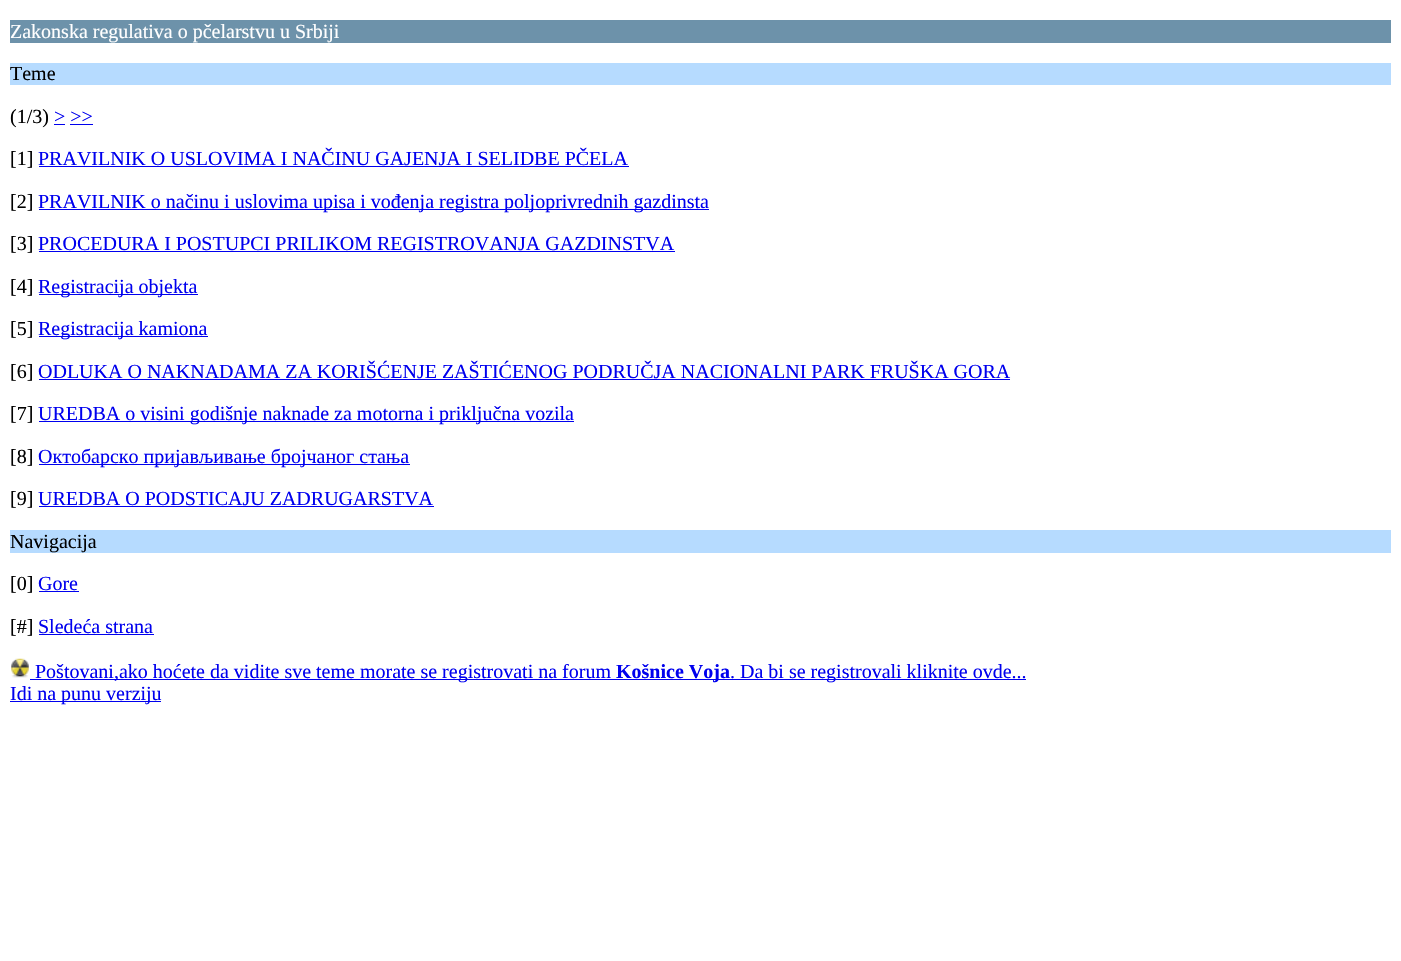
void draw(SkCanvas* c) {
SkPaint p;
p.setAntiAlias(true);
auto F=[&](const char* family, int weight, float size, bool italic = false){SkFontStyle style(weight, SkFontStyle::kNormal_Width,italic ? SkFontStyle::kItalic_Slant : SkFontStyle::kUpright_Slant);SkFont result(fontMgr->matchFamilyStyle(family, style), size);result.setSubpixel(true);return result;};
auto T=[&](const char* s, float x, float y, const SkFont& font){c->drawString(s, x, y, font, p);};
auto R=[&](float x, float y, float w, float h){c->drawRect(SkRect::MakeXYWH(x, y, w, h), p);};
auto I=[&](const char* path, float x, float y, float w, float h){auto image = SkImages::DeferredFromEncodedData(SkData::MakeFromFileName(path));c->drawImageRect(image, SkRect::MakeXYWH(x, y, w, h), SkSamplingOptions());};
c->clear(0xffffffff);
p.setColor(0xff6d92aa);
R(10,20,1381,23);
auto f1 = F("Liberation Serif",400,20);
p.setColor(0xffffffff);
T("Zakonska regulativa o pčelarstvu u Srbiji",10,38,f1);
p.setColor(0xffb6dbff);
R(10,63,1381,22);
p.setColor(0xff000000);
T("Teme",10,80,f1);
T("(1/3)",10,123,f1);
p.setColor(0xff0000ee);
T("> >>",54,123,f1);
R(54,124,11,1);
R(70,124,23,1);
p.setColor(0xff000000);
T("[1]",10,165,f1);
p.setColor(0xff0000ee);
T("PRAVILNIK O USLOVIMA I NAČINU GAJENJA I SELIDBE PČELA",38,165,f1);
R(39,166,590,1);
p.setColor(0xff000000);
T("[2]",10,208,f1);
p.setColor(0xff0000ee);
R(39,209,670,1);
T("PRAVILNIK o načinu i uslovima upisa i vođenja registra poljoprivrednih gazdinsta",38,208,f1);
p.setColor(0xff000000);
T("[3]",10,250,f1);
p.setColor(0xff0000ee);
T("PROCEDURA I POSTUPCI PRILIKOM REGISTROVANJA GAZDINSTVA",38,250,f1);
R(39,251,636,1);
p.setColor(0xff000000);
T("[4]",10,293,f1);
p.setColor(0xff0000ee);
R(39,294,159,1);
T("Registracija objekta",38,293,f1);
p.setColor(0xff000000);
T("[5]",10,335,f1);
p.setColor(0xff0000ee);
R(39,336,169,1);
T("Registracija kamiona",38,335,f1);
p.setColor(0xff000000);
T("[6]",10,378,f1);
p.setColor(0xff0000ee);
T("ODLUKA O NAKNADAMA ZA KORIŠĆENJE ZAŠTIĆENOG PODRUČJA NACIONALNI PARK FRUŠKA GORA",38,378,f1);
R(39,379,971,1);
p.setColor(0xff000000);
T("[7]",10,420,f1);
p.setColor(0xff0000ee);
R(39,421,535,1);
T("UREDBA o visini godišnje naknade za motorna i priključna vozila",38,420,f1);
p.setColor(0xff000000);
T("[8]",10,463,f1);
p.setColor(0xff0000ee);
R(39,464,371,1);
T("Октобарско пријављивање бројчаног стања",38,463,f1);
p.setColor(0xff000000);
T("[9]",10,505,f1);
p.setColor(0xff0000ee);
T("UREDBA O PODSTICAJU ZADRUGARSTVA",38,505,f1);
R(39,506,395,1);
p.setColor(0xffb6dbff);
R(10,530,1381,23);
p.setColor(0xff000000);
T("Navigacija",10,548,f1);
T("[0]",10,590,f1);
p.setColor(0xff0000ee);
T("Gore",38,590,f1);
R(39,591,40,1);
p.setColor(0xff000000);
T("[#]",10,633,f1);
p.setColor(0xff0000ee);
T("Sledeća strana",38,633,f1);
R(39,634,115,1);
I("1.png",11,658,18,20);
R(30,679,996,1);
T("Poštovani,ako hoćete da vidite sve teme morate se registrovati na forum",35,678,f1);
auto f2 = F("Liberation Serif",700,20);
T("Košnice Voja",616,678,f2);
T(". Da bi se registrovali kliknite ovde...",730,678,f1);
R(10,701,151,1);
T("Idi na punu verziju",10,700,f1);
}
